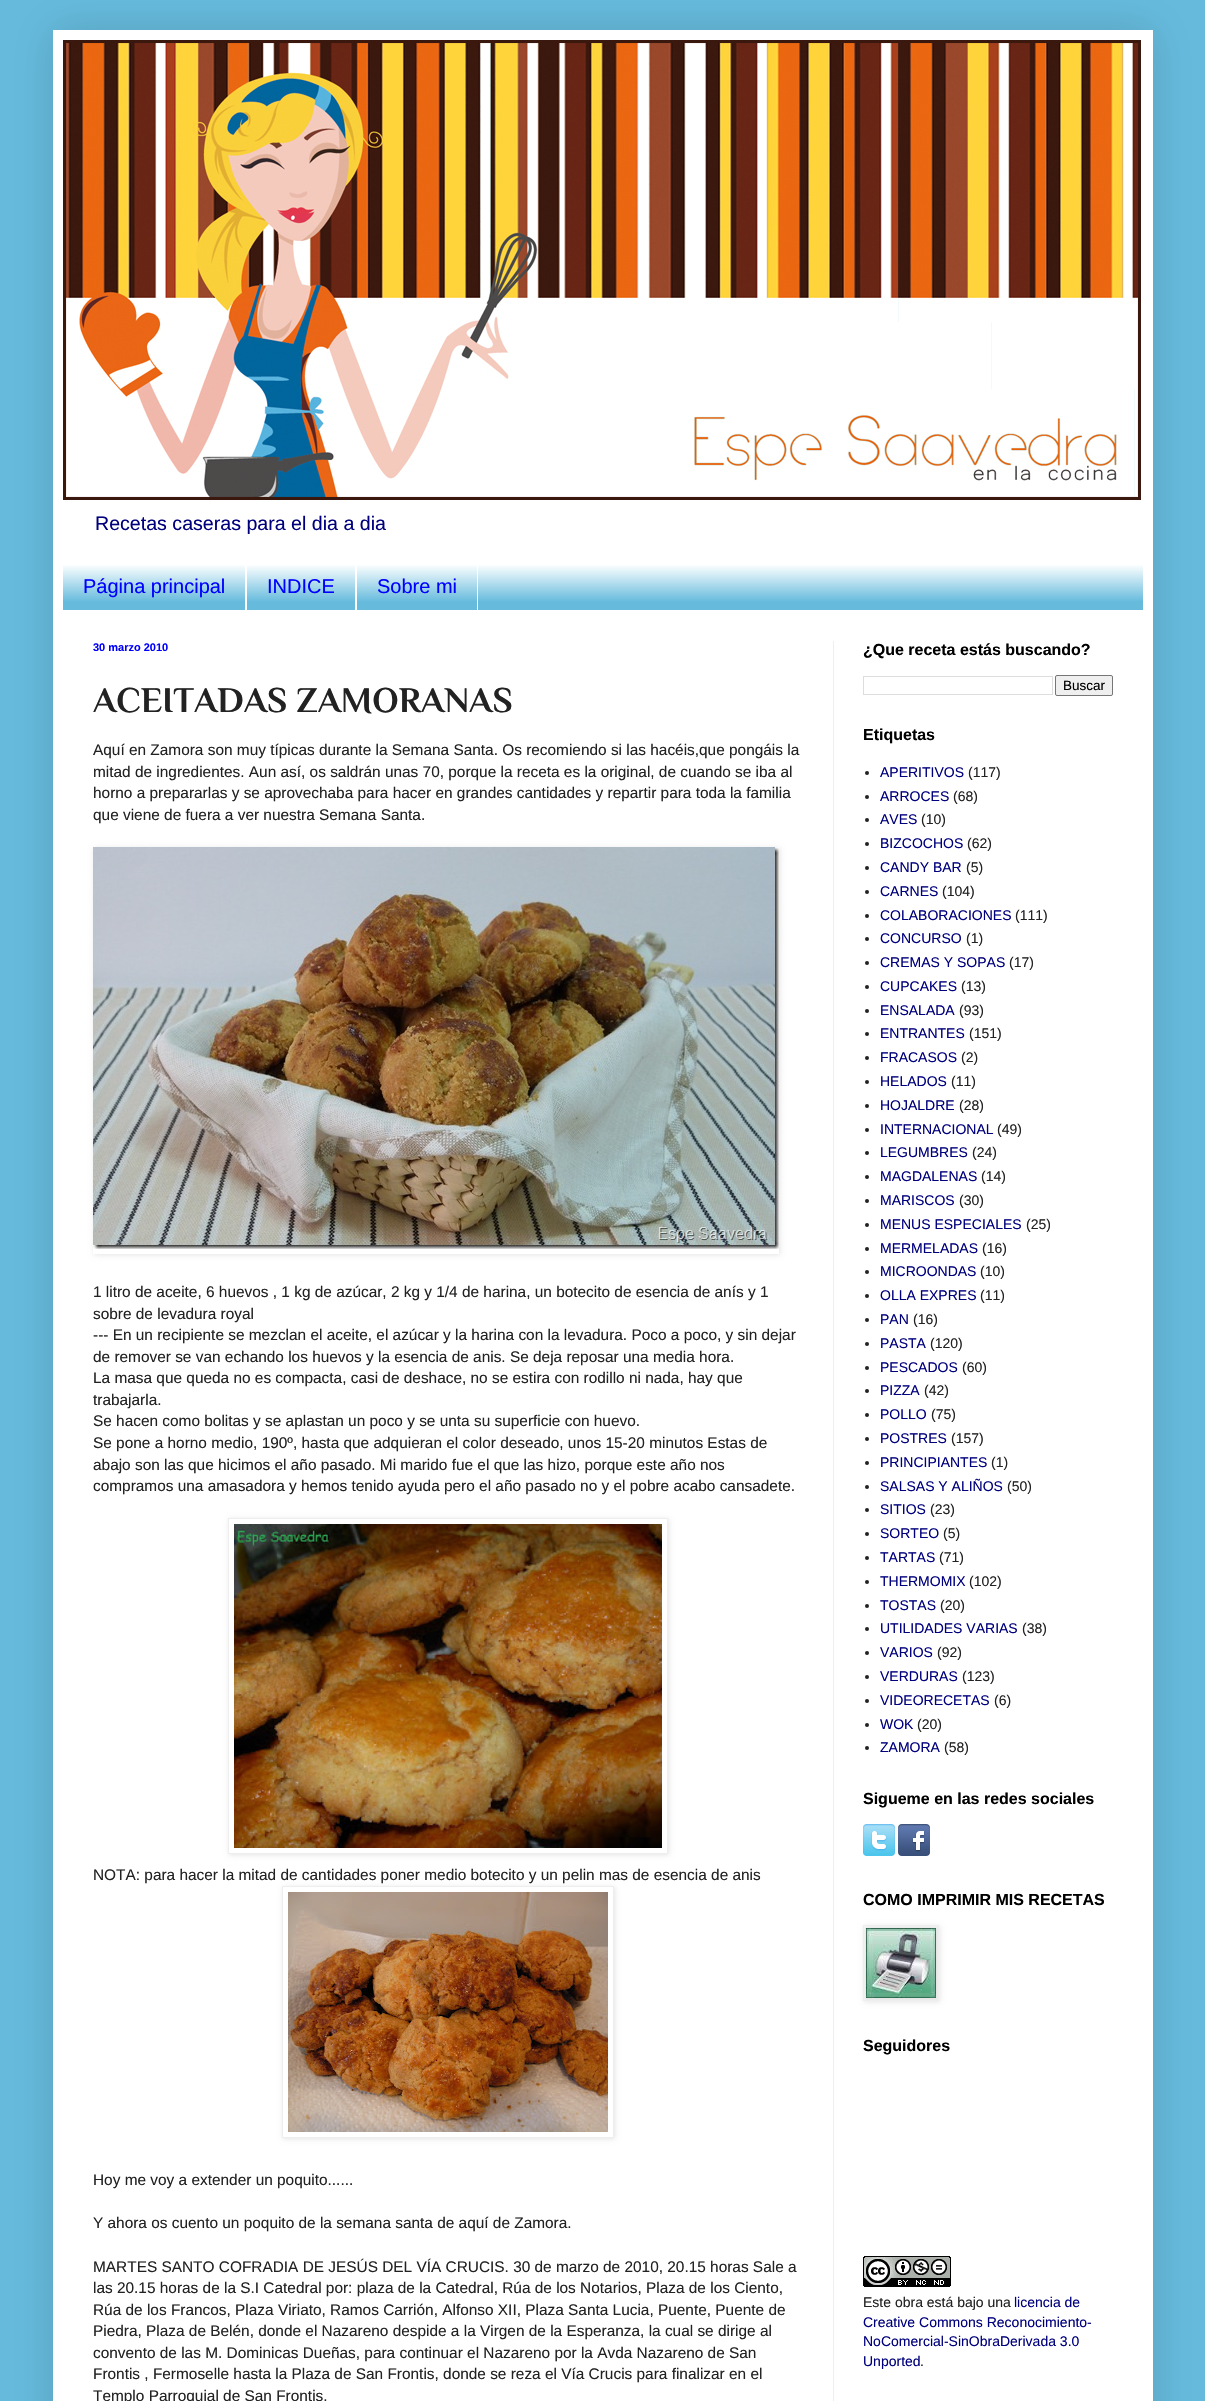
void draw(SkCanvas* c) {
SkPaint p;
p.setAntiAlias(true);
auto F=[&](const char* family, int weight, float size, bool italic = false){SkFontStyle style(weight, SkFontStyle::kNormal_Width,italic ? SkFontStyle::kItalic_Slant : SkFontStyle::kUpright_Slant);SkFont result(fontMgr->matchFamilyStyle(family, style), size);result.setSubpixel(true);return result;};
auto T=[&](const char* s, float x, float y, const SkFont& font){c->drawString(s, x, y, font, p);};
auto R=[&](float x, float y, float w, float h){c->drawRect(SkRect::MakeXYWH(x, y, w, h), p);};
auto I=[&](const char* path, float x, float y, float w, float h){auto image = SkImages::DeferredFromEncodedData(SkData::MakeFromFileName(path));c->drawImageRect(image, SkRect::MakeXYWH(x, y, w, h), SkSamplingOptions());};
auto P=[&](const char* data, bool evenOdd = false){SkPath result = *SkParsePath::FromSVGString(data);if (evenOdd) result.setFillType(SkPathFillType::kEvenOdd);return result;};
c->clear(0xff66bbdd);
p.setColor(0x26000000);
p.setMaskFilter(SkMaskFilter::MakeBlur(kNormal_SkBlurStyle, 20));
c->drawRect(SkRect::MakeXYWH(53,30,1100,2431),p);
p.setMaskFilter(nullptr);
p.setColor(0xffffffff);
R(53,30,1100,2371);
I("1.png",63,40,1078,460);
auto f1 = F("Liberation Sans",400,19.6);
p.setColor(0xff00007c);
T("Recetas caseras para el dia a dia",95,530,f1);
p.setColor(0xff66bbdd);
R(63,564,1080,46);
I("2.png",63,563,1080,38);
p.setColor(0xffffffff);
R(245,563,2,47);
auto f2 = F("Liberation Sans",400,20);
p.setColor(0xff0000ff);
T("Página principal",83,593,f2);
p.setColor(0xffffffff);
R(355,563,2,47);
p.setColor(0xff0000ff);
T("INDICE",267,593,f2);
p.setColor(0xffffffff);
R(477,563,1,47);
p.setColor(0xff0000ff);
T("Sobre mi",377,593,f2);
p.setColor(0xffeeeeee);
R(833,641,1,1760);
auto f3 = F("Liberation Sans",700,11);
p.setColor(0xff0000ff);
T("30 marzo 2010",93,651,f3);
auto f4 = F("Philosopher",700,36);
p.setColor(0xff222222);
T("ACEITADAS ZAMORANAS",93,712,f4);
auto f5 = F("Liberation Sans",400,15.4);
T("Aquí en Zamora son muy típicas durante la Semana Santa. Os recomiendo si las hacéis,que pongáis la",93,755,f5);
T("mitad de ingredientes. Aun así, os saldrán unas 70, porque la receta es la original, de cuando se iba al",93,777,f5);
T("horno a prepararlas y se aprovechaba para hacer en grandes cantidades y repartir para toda la familia",93,798,f5);
T("que viene de fuera a ver nuestra Semana Santa.",93,820,f5);
c->save();
c->clipPath(P("M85 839h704v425h-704zm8 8h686v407h-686z",true),true);
p.setColor(0x1a000000);
p.setMaskFilter(SkMaskFilter::MakeBlur(kNormal_SkBlurStyle, 2.5));
c->drawRect(SkRect::MakeXYWH(94,848,686,407),p);
p.setMaskFilter(nullptr);
c->restore();
I("3.png",93,847,686,402);
p.setColor(0xff222222);
T("1 litro de aceite, 6 huevos , 1 kg de azúcar, 2 kg y 1/4 de harina, un botecito de esencia de anís y 1",93,1297,f5);
T("sobre de levadura royal",93,1319,f5);
T("--- En un recipiente se mezclan el aceite, el azúcar y la harina con la levadura. Poco a poco, y sin dejar",93,1340,f5);
T("de remover se van echando los huevos y la esencia de anis. Se deja reposar una media hora.",93,1362,f5);
T("La masa que queda no es compacta, casi de deshace, no se estira con rodillo ni nada, hay que",93,1383,f5);
T("trabajarla.",93,1405,f5);
T("Se hacen como bolitas y se aplastan un poco y se unta su superficie con huevo.",93,1426,f5);
T("Se pone a horno medio, 190º, hasta que adquieran el color deseado, unos 15-20 minutos Estas de",93,1448,f5);
T("abajo son las que hicimos el año pasado. Mi marido fue el que las hizo, porque este año nos",93,1470,f5);
T("compramos una amasadora y hemos tenido ayuda pero el año pasado no y el pobre acabo cansadete.",93,1491,f5);
c->save();
c->clipPath(P("M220 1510h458v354h-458zm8 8h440v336h-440z",true),true);
p.setColor(0x1a000000);
p.setMaskFilter(SkMaskFilter::MakeBlur(kNormal_SkBlurStyle, 2.5));
c->drawRect(SkRect::MakeXYWH(229,1519,440,336),p);
p.setMaskFilter(nullptr);
c->restore();
p.setStroke(true);
p.setStrokeWidth(1);
p.setColor(0xffeeeeee);
c->drawRect(SkRect::MakeXYWH(228.5,1518.5,439,335),p);
I("4.png",234,1524,428,324);
c->save();
c->clipPath(P("M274 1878h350v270h-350zm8 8h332v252h-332z",true),true);
p.setStroke(false);
p.setColor(0x1a000000);
p.setMaskFilter(SkMaskFilter::MakeBlur(kNormal_SkBlurStyle, 2.5));
c->drawRect(SkRect::MakeXYWH(283,1887,332,252),p);
p.setMaskFilter(nullptr);
c->restore();
p.setColor(0xff222222);
T("NOTA: para hacer la mitad de cantidades poner medio botecito y un pelin mas de esencia de anis",93,1880,f5);
p.setStroke(true);
p.setColor(0xffeeeeee);
c->drawRect(SkRect::MakeXYWH(282.5,1886.5,331,251),p);
I("5.png",288,1892,320,240);
p.setStroke(false);
p.setColor(0xff222222);
T("Hoy me voy a extender un poquito......",93,2185,f5);
T("Y ahora os cuento un poquito de la semana santa de aquí de Zamora.",93,2228,f5);
T("MARTES SANTO COFRADIA DE JESÚS DEL VÍA CRUCIS. 30 de marzo de 2010, 20.15 horas Sale a",93,2272,f5);
T("las 20.15 horas de la S.I Catedral por: plaza de la Catedral, Rúa de los Notarios, Plaza de los Ciento,",93,2293,f5);
T("Rúa de los Francos, Plaza Viriato, Ramos Carrión, Alfonso XII, Plaza Santa Lucia, Puente, Puente de",93,2315,f5);
T("Piedra, Plaza de Belén, donde el Nazareno despide a la Virgen de la Esperanza, la cual se dirige al",93,2336,f5);
T("convento de las M. Dominicas Dueñas, para continuar el Nazareno por la Avda Nazareno de San",93,2358,f5);
T("Frontis , Fermoselle hasta la Plaza de San Frontis, donde se reza el Vía Crucis para finalizar en el",93,2379,f5);
T("Templo Parroquial de San Frontis.",93,2401,f5);
auto f6 = F("Liberation Sans",700,16);
p.setColor(0xff000000);
T("¿Que receta estás buscando?",863,655,f6);
p.setStroke(true);
p.setColor(0xffdddddd);
c->drawRect(SkRect::MakeXYWH(863.5,676.5,189,18),p);
p.setStroke(false);
p.setColor(0xffefefef);
c->drawRoundRect(SkRect::MakeXYWH(1055.5,675.5,57,20),1.5,1.5,p);
p.setStroke(true);
p.setColor(0xff767676);
c->drawRoundRect(SkRect::MakeXYWH(1055.5,675.5,57,20),1.5,1.5,p);
auto f7 = F("Liberation Sans",400,13.5);
p.setStroke(false);
p.setColor(0xff000000);
T("Buscar",1063,690,f7);
T("Etiquetas",863,740,f6);
p.setColor(0xff222222);
c->drawCircle(867,773,2,p);
auto f8 = F("Liberation Sans",400,14);
p.setColor(0xff00007c);
T("APERITIVOS",880,777,f8);
p.setColor(0xff222222);
T("(117)",968,777,f8);
c->drawCircle(867,797,2,p);
p.setColor(0xff00007c);
T("ARROCES",880,801,f8);
p.setColor(0xff222222);
T("(68)",953,801,f8);
c->drawCircle(867,820,2,p);
p.setColor(0xff00007c);
T("AVES",880,824,f8);
p.setColor(0xff222222);
T("(10)",921,824,f8);
c->drawCircle(867,844,2,p);
p.setColor(0xff00007c);
T("BIZCOCHOS",880,848,f8);
p.setColor(0xff222222);
T("(62)",967,848,f8);
c->drawCircle(867,868,2,p);
p.setColor(0xff00007c);
T("CANDY BAR",880,872,f8);
p.setColor(0xff222222);
T("(5)",966,872,f8);
c->drawCircle(867,892,2,p);
p.setColor(0xff00007c);
T("CARNES",880,896,f8);
p.setColor(0xff222222);
T("(104)",942,896,f8);
c->drawCircle(867,916,2,p);
p.setColor(0xff00007c);
T("COLABORACIONES",880,920,f8);
p.setColor(0xff222222);
T("(111)",1015,920,f8);
c->drawCircle(867,939,2,p);
p.setColor(0xff00007c);
T("CONCURSO",880,943,f8);
p.setColor(0xff222222);
T("(1)",966,943,f8);
c->drawCircle(867,963,2,p);
p.setColor(0xff00007c);
T("CREMAS Y SOPAS",880,967,f8);
p.setColor(0xff222222);
T("(17)",1009,967,f8);
c->drawCircle(867,987,2,p);
p.setColor(0xff00007c);
T("CUPCAKES",880,991,f8);
p.setColor(0xff222222);
T("(13)",961,991,f8);
c->drawCircle(867,1011,2,p);
p.setColor(0xff00007c);
T("ENSALADA",880,1015,f8);
p.setColor(0xff222222);
T("(93)",959,1015,f8);
c->drawCircle(867,1034,2,p);
p.setColor(0xff00007c);
T("ENTRANTES",880,1038,f8);
p.setColor(0xff222222);
T("(151)",969,1038,f8);
c->drawCircle(867,1058,2,p);
p.setColor(0xff00007c);
T("FRACASOS",880,1062,f8);
p.setColor(0xff222222);
T("(2)",961,1062,f8);
c->drawCircle(867,1082,2,p);
p.setColor(0xff00007c);
T("HELADOS",880,1086,f8);
p.setColor(0xff222222);
T("(11)",951,1086,f8);
c->drawCircle(867,1106,2,p);
p.setColor(0xff00007c);
T("HOJALDRE",880,1110,f8);
p.setColor(0xff222222);
T("(28)",959,1110,f8);
c->drawCircle(867,1130,2,p);
p.setColor(0xff00007c);
T("INTERNACIONAL",880,1134,f8);
p.setColor(0xff222222);
T("(49)",997,1134,f8);
c->drawCircle(867,1153,2,p);
p.setColor(0xff00007c);
T("LEGUMBRES",880,1157,f8);
p.setColor(0xff222222);
T("(24)",972,1157,f8);
c->drawCircle(867,1177,2,p);
p.setColor(0xff00007c);
T("MAGDALENAS",880,1181,f8);
p.setColor(0xff222222);
T("(14)",981,1181,f8);
c->drawCircle(867,1201,2,p);
p.setColor(0xff00007c);
T("MARISCOS",880,1205,f8);
p.setColor(0xff222222);
T("(30)",959,1205,f8);
c->drawCircle(867,1225,2,p);
p.setColor(0xff00007c);
T("MENUS ESPECIALES",880,1229,f8);
p.setColor(0xff222222);
T("(25)",1026,1229,f8);
c->drawCircle(867,1249,2,p);
p.setColor(0xff00007c);
T("MERMELADAS",880,1253,f8);
p.setColor(0xff222222);
T("(16)",982,1253,f8);
c->drawCircle(867,1272,2,p);
p.setColor(0xff00007c);
T("MICROONDAS",880,1276,f8);
p.setColor(0xff222222);
T("(10)",980,1276,f8);
c->drawCircle(867,1296,2,p);
p.setColor(0xff00007c);
T("OLLA EXPRES",880,1300,f8);
p.setColor(0xff222222);
T("(11)",980,1300,f8);
c->drawCircle(867,1320,2,p);
p.setColor(0xff00007c);
T("PAN",880,1324,f8);
p.setColor(0xff222222);
T("(16)",913,1324,f8);
c->drawCircle(867,1344,2,p);
p.setColor(0xff00007c);
T("PASTA",880,1348,f8);
p.setColor(0xff222222);
T("(120)",930,1348,f8);
c->drawCircle(867,1368,2,p);
p.setColor(0xff00007c);
T("PESCADOS",880,1372,f8);
p.setColor(0xff222222);
T("(60)",962,1372,f8);
c->drawCircle(867,1391,2,p);
p.setColor(0xff00007c);
T("PIZZA",880,1395,f8);
p.setColor(0xff222222);
T("(42)",924,1395,f8);
c->drawCircle(867,1415,2,p);
p.setColor(0xff00007c);
T("POLLO",880,1419,f8);
p.setColor(0xff222222);
T("(75)",931,1419,f8);
c->drawCircle(867,1439,2,p);
p.setColor(0xff00007c);
T("POSTRES",880,1443,f8);
p.setColor(0xff222222);
T("(157)",951,1443,f8);
c->drawCircle(867,1463,2,p);
p.setColor(0xff00007c);
T("PRINCIPIANTES",880,1467,f8);
p.setColor(0xff222222);
T("(1)",991,1467,f8);
c->drawCircle(867,1487,2,p);
p.setColor(0xff00007c);
T("SALSAS Y ALIÑOS",880,1491,f8);
p.setColor(0xff222222);
T("(50)",1007,1491,f8);
c->drawCircle(867,1510,2,p);
p.setColor(0xff00007c);
T("SITIOS",880,1514,f8);
p.setColor(0xff222222);
T("(23)",930,1514,f8);
c->drawCircle(867,1534,2,p);
p.setColor(0xff00007c);
T("SORTEO",880,1538,f8);
p.setColor(0xff222222);
T("(5)",943,1538,f8);
c->drawCircle(867,1558,2,p);
p.setColor(0xff00007c);
T("TARTAS",880,1562,f8);
p.setColor(0xff222222);
T("(71)",939,1562,f8);
c->drawCircle(867,1582,2,p);
p.setColor(0xff00007c);
T("THERMOMIX",880,1586,f8);
p.setColor(0xff222222);
T("(102)",969,1586,f8);
c->drawCircle(867,1606,2,p);
p.setColor(0xff00007c);
T("TOSTAS",880,1610,f8);
p.setColor(0xff222222);
T("(20)",940,1610,f8);
c->drawCircle(867,1629,2,p);
p.setColor(0xff00007c);
T("UTILIDADES VARIAS",880,1633,f8);
p.setColor(0xff222222);
T("(38)",1022,1633,f8);
c->drawCircle(867,1653,2,p);
p.setColor(0xff00007c);
T("VARIOS",880,1657,f8);
p.setColor(0xff222222);
T("(92)",937,1657,f8);
c->drawCircle(867,1677,2,p);
p.setColor(0xff00007c);
T("VERDURAS",880,1681,f8);
p.setColor(0xff222222);
T("(123)",962,1681,f8);
c->drawCircle(867,1701,2,p);
p.setColor(0xff00007c);
T("VIDEORECETAS",880,1705,f8);
p.setColor(0xff222222);
T("(6)",994,1705,f8);
c->drawCircle(867,1725,2,p);
p.setColor(0xff00007c);
T("WOK",880,1729,f8);
p.setColor(0xff222222);
T("(20)",917,1729,f8);
c->drawCircle(867,1748,2,p);
p.setColor(0xff00007c);
T("ZAMORA",880,1752,f8);
p.setColor(0xff222222);
T("(58)",944,1752,f8);
p.setColor(0xff000000);
T("Sigueme en las redes sociales",863,1804,f6);
I("6.png",863,1824,32,32);
I("7.png",898,1824,32,32);
T("COMO IMPRIMIR MIS RECETAS",863,1905,f6);
p.setColor(0x1a000000);
p.setMaskFilter(SkMaskFilter::MakeBlur(kNormal_SkBlurStyle, 2.5));
c->drawRect(SkRect::MakeXYWH(864,1926,76,76),p);
p.setMaskFilter(nullptr);
p.setStroke(true);
p.setColor(0xffeeeeee);
c->drawRect(SkRect::MakeXYWH(863.5,1925.5,75,75),p);
I("8.png",866,1928,70,70);
p.setStroke(false);
p.setColor(0xff000000);
T("Seguidores",863,2051,f6);
I("9.png",863,2256,88,31);
p.setColor(0xff222222);
T("Este obra está bajo una",863,2307,f8);
p.setColor(0xff00007c);
T("licencia de",1014,2307,f8);
T("Creative Commons Reconocimiento-",863,2327,f8);
T("NoComercial-SinObraDerivada 3.0",863,2346,f8);
T("Unported",863,2366,f8);
p.setColor(0xff222222);
T(".",920,2366,f8);
}
